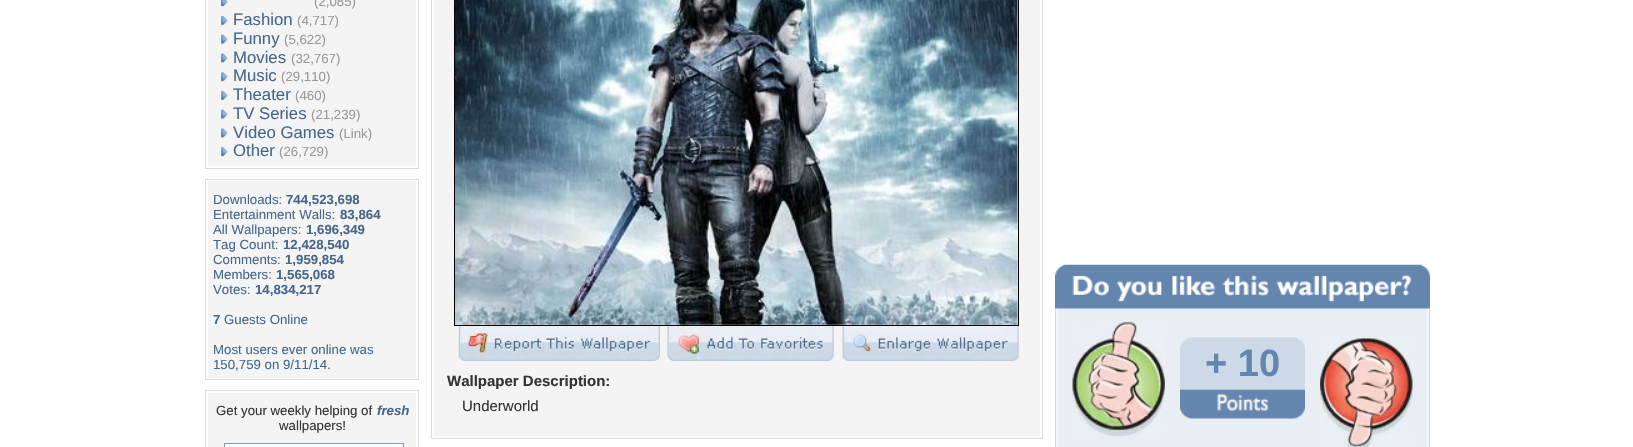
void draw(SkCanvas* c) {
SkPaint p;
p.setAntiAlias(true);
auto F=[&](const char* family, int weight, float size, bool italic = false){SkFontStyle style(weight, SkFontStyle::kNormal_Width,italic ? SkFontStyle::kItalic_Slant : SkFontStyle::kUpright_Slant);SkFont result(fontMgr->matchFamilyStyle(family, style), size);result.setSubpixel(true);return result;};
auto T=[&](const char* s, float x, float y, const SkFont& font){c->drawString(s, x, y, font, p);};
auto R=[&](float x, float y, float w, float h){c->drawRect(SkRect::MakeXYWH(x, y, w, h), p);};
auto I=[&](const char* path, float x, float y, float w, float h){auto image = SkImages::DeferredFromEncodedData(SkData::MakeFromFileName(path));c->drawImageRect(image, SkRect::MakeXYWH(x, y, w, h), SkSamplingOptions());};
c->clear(0xffffffff);
p.setStroke(true);
p.setStrokeWidth(1);
p.setColor(0xffdcdcdc);
c->drawRect(SkRect::MakeXYWH(205.5,-.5,213,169),p);
p.setStroke(false);
p.setColor(0xfff4f4f4);
R(208,0,208,166);
I("1.png",221,0,7,7);
auto f1 = F("Liberation Sans",400,13.25);
p.setColor(0xff999999);
T("(2,085)",314,6,f1);
I("2.png",221,15,7,10);
auto f2 = F("Liberation Sans",400,16.75);
p.setColor(0xff46678a);
T("Fashion",233,25,f2);
p.setColor(0xff999999);
T("(4,717)",297,25,f1);
I("3.png",221,34,7,10);
p.setColor(0xff46678a);
T("Funny",233,44,f2);
p.setColor(0xff999999);
T("(5,622)",284,44,f1);
I("4.png",221,53,7,10);
p.setColor(0xff46678a);
T("Movies",233,63,f2);
p.setColor(0xff999999);
T("(32,767)",291,63,f1);
I("5.png",221,72,7,10);
p.setColor(0xff46678a);
T("Music",233,81,f2);
p.setColor(0xff999999);
T("(29,110)",281,81,f1);
I("2.png",221,90,7,10);
p.setColor(0xff46678a);
T("Theater",233,100,f2);
p.setColor(0xff999999);
T("(460)",295,100,f1);
I("3.png",221,109,7,10);
p.setColor(0xff46678a);
T("TV Series",233,119,f2);
p.setColor(0xff999999);
T("(21,239)",311,119,f1);
I("4.png",221,128,7,10);
p.setColor(0xff46678a);
T("Video Games",233,138,f2);
p.setColor(0xff999999);
T("(Link)",339,138,f1);
I("5.png",221,147,7,10);
p.setColor(0xff46678a);
T("Other",233,156,f2);
p.setColor(0xff999999);
T("(26,729)",279,156,f1);
p.setStroke(true);
p.setColor(0xffdcdcdc);
c->drawRect(SkRect::MakeXYWH(205.5,179.5,213,200),p);
p.setStroke(false);
p.setColor(0xfff4f4f4);
R(208,181,208,197);
p.setColor(0xff46678a);
T("Downloads:",213,204,f1);
auto f3 = F("Liberation Sans",700,13.25);
T("744,523,698",286,204,f3);
T("Entertainment Walls:",213,219,f1);
T("83,864",340,219,f3);
T("All Wallpapers:",213,234,f1);
T("1,696,349",306,234,f3);
T("Tag Count:",213,249,f1);
T("12,428,540",283,249,f3);
T("Comments:",213,264,f1);
T("1,959,854",285,264,f3);
T("Members:",213,279,f1);
T("1,565,068",276,279,f3);
T("Votes:",213,294,f1);
T("14,834,217",255,294,f3);
T("7",213,324,f3);
T("Guests Online",224,324,f1);
T("Most users ever online was",213,354,f1);
T("150,759 on 9/11/14.",213,369,f1);
p.setStroke(true);
p.setColor(0xffdcdcdc);
c->drawRect(SkRect::MakeXYWH(205.5,390.5,213,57),p);
p.setStroke(false);
p.setColor(0xfff4f4f4);
R(208,393,208,54);
p.setColor(0xff333333);
T("Get your weekly helping of",216,415,f1);
auto f4 = F("Liberation Sans",700,13.25,true);
p.setColor(0xff46678a);
T("fresh",377,415,f4);
p.setColor(0xff333333);
T("wallpapers!",279,430,f1);
p.setColor(0xffffffff);
c->drawRect(SkRect::MakeXYWH(224.5,443.5,179,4),p);
p.setStroke(true);
p.setColor(0xff7f9db9);
c->drawRect(SkRect::MakeXYWH(224.5,443.5,179,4),p);
I("7.png",1055,308,375,139);
I("6.png",1055,264,375,45);
I("8.png",1072,321,93,116);
p.setStroke(false);
p.setColor(0xffcdd9e7);
R(1180,347,125,43);
I("9.png",1180,337,125,10);
auto f5 = F("Liberation Sans",700,38);
p.setColor(0xff6485ae);
T("+ 10",1205,376,f5);
I("10.png",1180,389,125,30);
I("11.png",1320,336,93,111);
p.setStroke(true);
p.setColor(0xffdcdcdc);
c->drawRect(SkRect::MakeXYWH(431.5,-.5,611,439),p);
p.setStroke(false);
p.setColor(0xfff4f4f4);
R(434,0,606,436);
p.setStroke(true);
p.setColor(0xff000000);
c->drawRect(SkRect::MakeXYWH(454.5,-.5,564,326),p);
I("12.png",455,0,563,325);
I("13.png",458,326,202,35);
I("14.png",667,326,167,35);
I("15.png",842,326,177,35);
auto f6 = F("Liberation Sans",700,15);
p.setStroke(false);
p.setColor(0xff333333);
T("Wallpaper Description:",447,386,f6);
auto f7 = F("Liberation Sans",400,15);
T("Underworld",462,411,f7);
}
